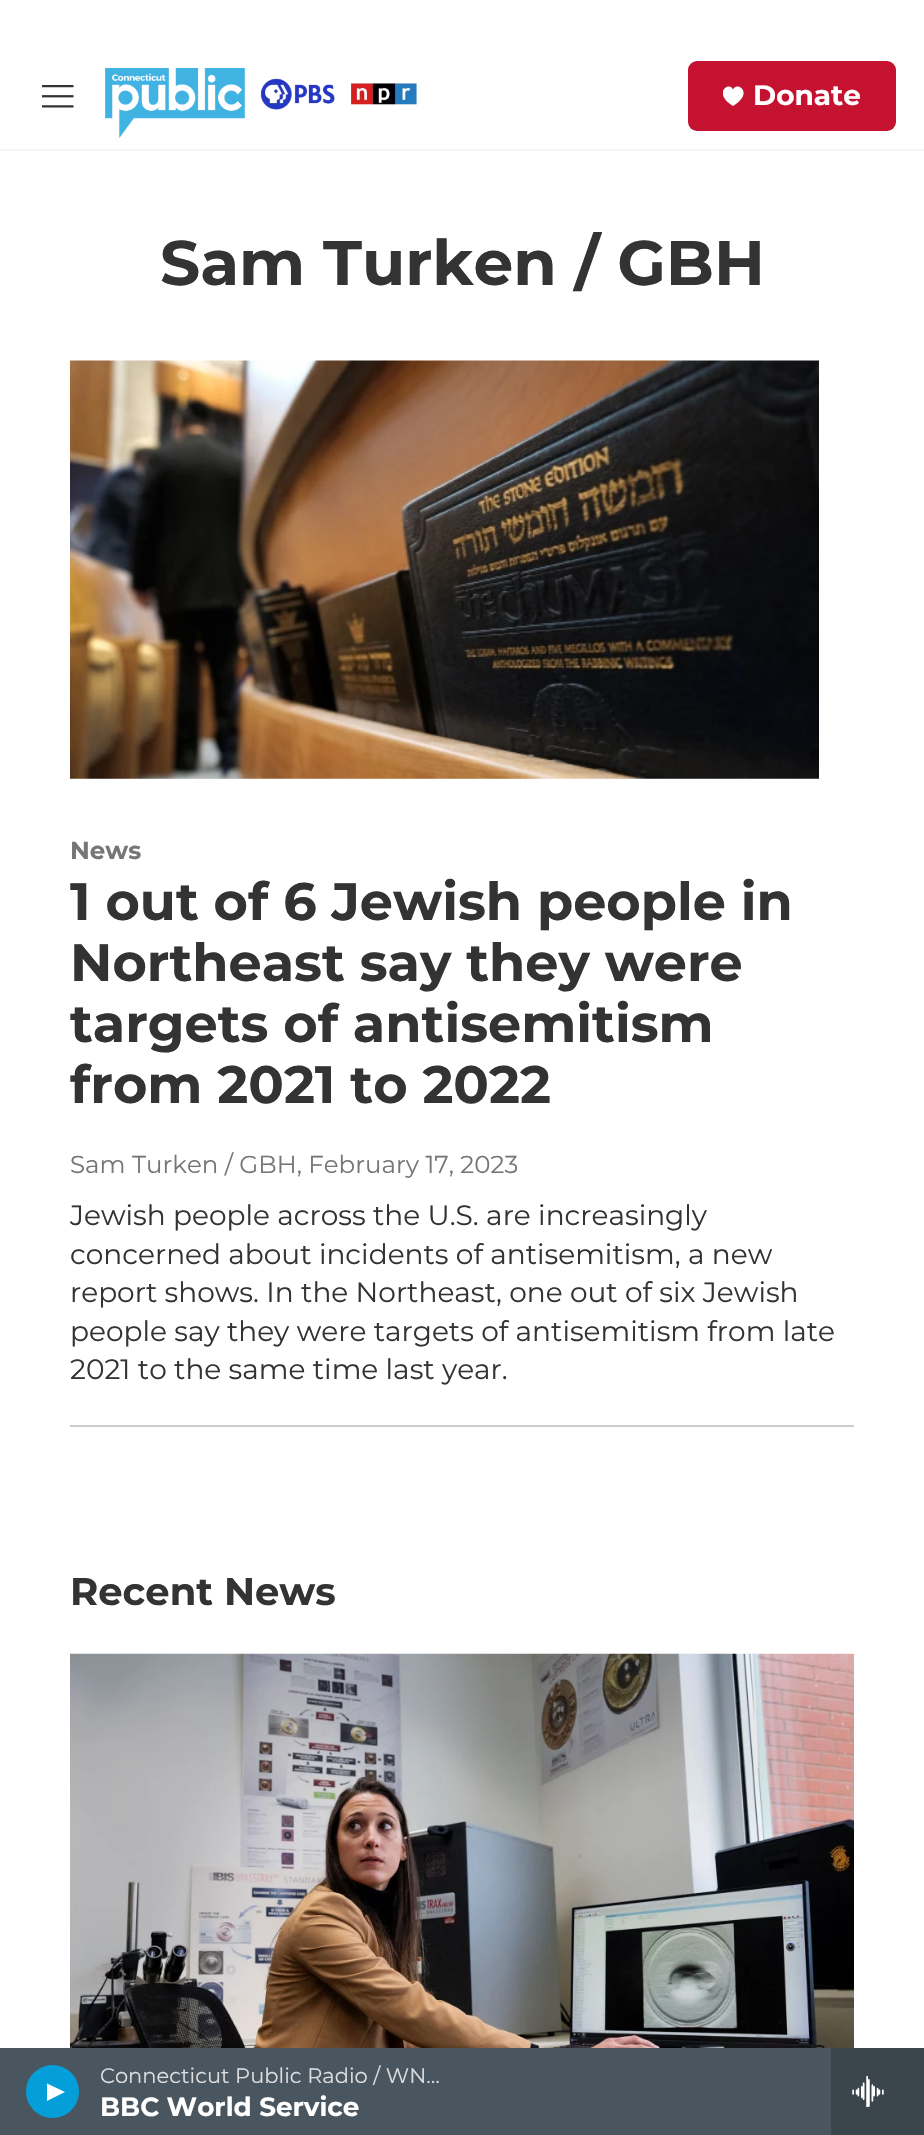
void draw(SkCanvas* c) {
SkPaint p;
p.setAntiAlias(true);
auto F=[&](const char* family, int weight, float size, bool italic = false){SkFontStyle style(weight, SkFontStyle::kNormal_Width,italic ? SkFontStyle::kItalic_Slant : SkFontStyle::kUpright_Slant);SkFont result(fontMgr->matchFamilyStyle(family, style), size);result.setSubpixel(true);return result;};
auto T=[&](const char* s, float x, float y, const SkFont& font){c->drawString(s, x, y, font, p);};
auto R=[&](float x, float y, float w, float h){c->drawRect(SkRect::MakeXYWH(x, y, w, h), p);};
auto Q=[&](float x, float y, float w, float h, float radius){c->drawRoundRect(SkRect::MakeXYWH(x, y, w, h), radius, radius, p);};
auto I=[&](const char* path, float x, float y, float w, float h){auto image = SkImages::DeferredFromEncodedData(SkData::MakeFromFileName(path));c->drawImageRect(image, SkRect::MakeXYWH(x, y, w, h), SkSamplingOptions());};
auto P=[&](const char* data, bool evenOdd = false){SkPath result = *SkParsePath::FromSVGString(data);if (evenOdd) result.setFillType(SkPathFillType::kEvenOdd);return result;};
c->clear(0xffffffff);
p.setColor(0xfff5f5f5);
R(0,149,924,2);
I("1.png",42,85,32,23);
I("2.png",105,68,312,70);
p.setColor(0xffc41230);
Q(688,61,208,70,9);
c->save();
c->clipRect(SkRect::MakeXYWH(723,86,21,21));
p.setColor(0xffffffff);
c->drawPath(P("M733 89.5c-3-9-21.5 3 0 16.5c22-13.5 3.5-25.5 0-16.5z"),p);
c->restore();
auto f1 = F("Montserrat",700,28);
T("Donate",753,105,f1);
p.setColor(0xff4a565f);
R(0,2048,831,87);
p.setColor(0xff049fda);
c->drawCircle(52.5,2091.5,26.5,p);
p.setColor(0xffffffff);
c->drawPath(P("M47 2083.5l18 8.5l-18 9z"),p);
auto f2 = F("Montserrat",400,21);
p.setColor(0xffdbdddf);
T("Connecticut Public Radio / WN…",100,2083,f2);
auto f3 = F("Montserrat",700,26.25);
p.setColor(0xffffffff);
T("BBC World Service",100,2116,f3);
p.setColor(0xff3b454c);
R(831,2048,93,87);
I("3.png",852,2076,32,31);
auto f4 = F("Montserrat",700,63);
p.setColor(0xff333333);
T("Sam Turken / GBH",160,285,f4);
p.setColor(0xffcccccc);
R(70,1425,784,2);
I("4.png",70,360,749,419);
auto f5 = F("Montserrat",700,24.5);
p.setColor(0xff767676);
T("News",70,859,f5);
auto f6 = F("Montserrat",700,52.5);
p.setColor(0xff333333);
T("1 out of 6 Jewish people in",70,920,f6);
T("Northeast say they were",70,981,f6);
T("targets of antisemitism",70,1042,f6);
T("from 2021 to 2022",70,1103,f6);
auto f7 = F("Montserrat",400,24.5);
p.setColor(0xff767676);
T("Sam Turken / GBH, February 17, 2023",70,1173,f7);
auto f8 = F("Montserrat",400,28);
p.setColor(0xff333333);
T("Jewish people across the U.S. are increasingly",70,1225,f8);
T("concerned about incidents of antisemitism, a new",70,1264,f8);
T("report shows. In the Northeast, one out of six Jewish",70,1302,f8);
T("people say they were targets of antisemitism from late",70,1341,f8);
T("2021 to the same time last year.",70,1379,f8);
auto f9 = F("Montserrat",700,38.5);
T("Recent News",70,1605,f9);
I("5.png",70,1653,784,395);
}
